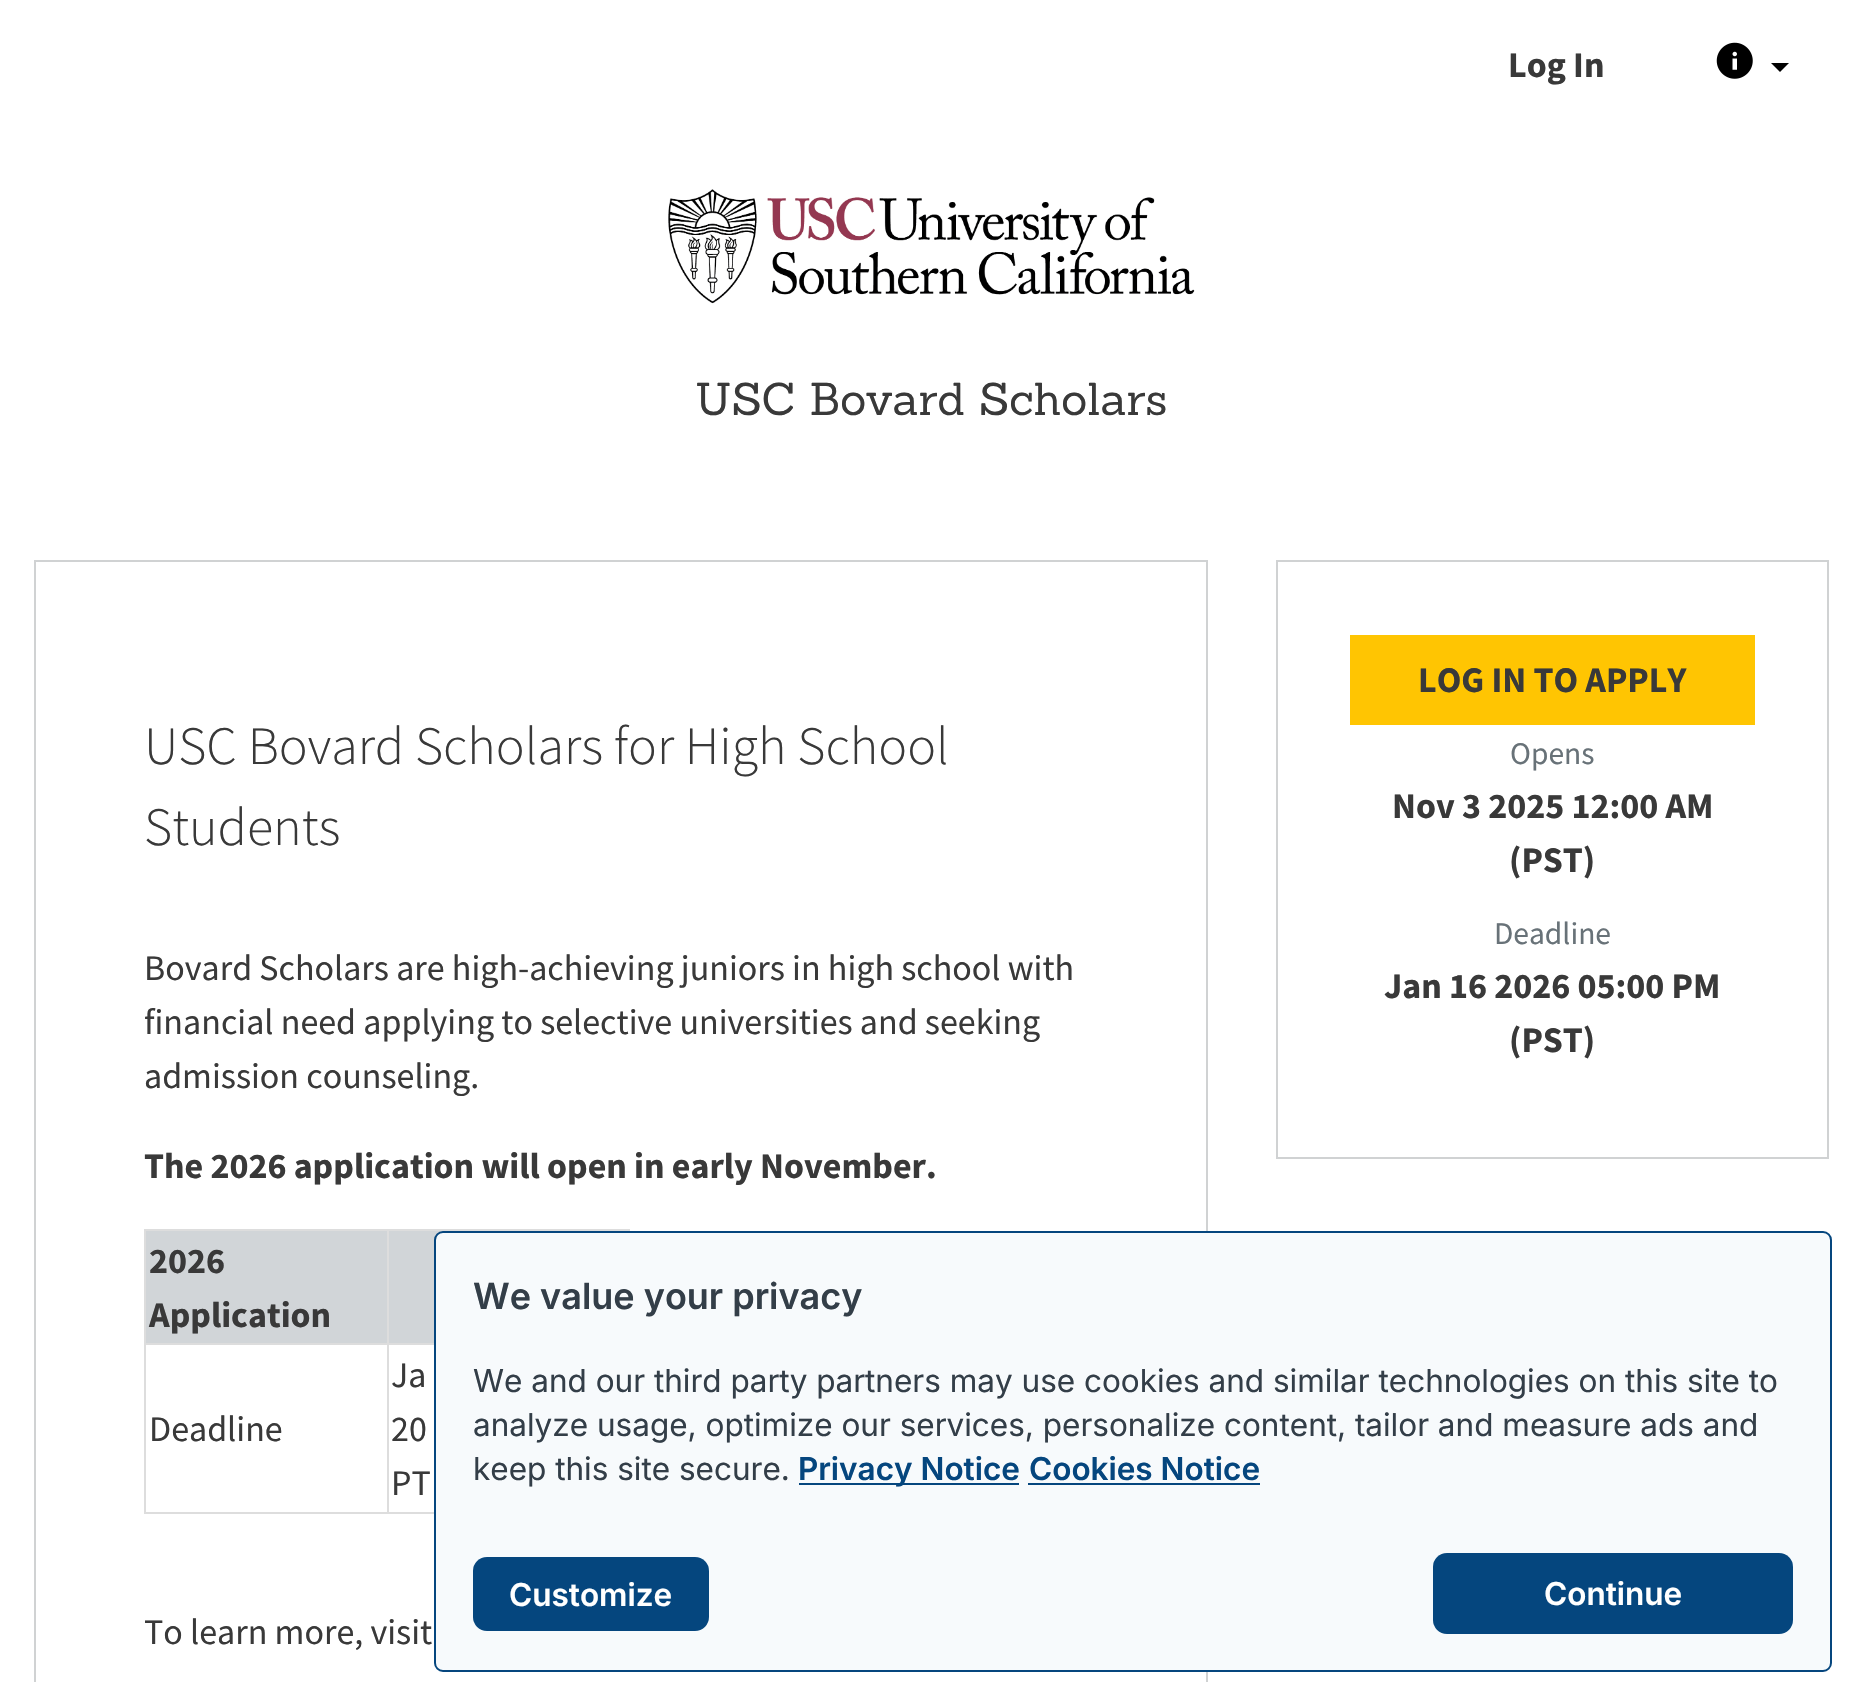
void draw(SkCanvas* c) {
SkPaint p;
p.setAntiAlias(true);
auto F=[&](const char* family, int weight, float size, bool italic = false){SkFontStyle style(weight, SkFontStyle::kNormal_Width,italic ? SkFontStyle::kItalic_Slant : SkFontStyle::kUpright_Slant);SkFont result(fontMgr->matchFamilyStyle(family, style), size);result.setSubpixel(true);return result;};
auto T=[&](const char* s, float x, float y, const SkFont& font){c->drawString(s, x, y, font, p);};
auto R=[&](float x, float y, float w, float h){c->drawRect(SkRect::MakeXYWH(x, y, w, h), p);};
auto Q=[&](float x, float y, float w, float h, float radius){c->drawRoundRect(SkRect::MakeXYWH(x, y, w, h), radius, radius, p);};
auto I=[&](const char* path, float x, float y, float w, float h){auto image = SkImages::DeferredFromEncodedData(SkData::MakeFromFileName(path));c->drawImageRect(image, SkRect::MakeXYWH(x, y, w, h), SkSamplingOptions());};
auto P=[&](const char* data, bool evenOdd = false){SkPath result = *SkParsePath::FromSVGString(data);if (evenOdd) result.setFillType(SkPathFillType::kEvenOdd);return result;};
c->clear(0xffffffff);
auto f1 = F("Source Sans Pro",700,36);
p.setColor(0xff393939);
T("Log In",1508,77,f1);
I("1.png",1716,42,37,37);
p.setColor(0xff000000);
c->drawPath(P("M1771 63h18l-9 9z"),p);
I("2.png",668,189,527,115);
auto f2 = F("Sanchez",400,45);
p.setColor(0xff393939);
T("USC Bovard Scholars",695,415,f2);
p.setStroke(true);
p.setStrokeWidth(2);
p.setColor(0xffd0d2d3);
c->drawRect(SkRect::MakeXYWH(35,561,1172,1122),p);
auto f3 = F("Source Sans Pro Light",300,54);
p.setStroke(false);
p.setColor(0xff393939);
T("USC Bovard Scholars for High School",144,764,f3);
T("Students",144,845,f3);
auto f4 = F("Source Sans Pro",400,36);
T("Bovard Scholars are high-achieving juniors in high school with",144,980,f4);
T("financial need applying to selective universities and seeking",144,1034,f4);
T("admission counseling.",144,1088,f4);
T("The 2026 application will open in early November.",144,1178,f1);
p.setColor(0xffd1d5d8);
R(146,1231,241,112);
p.setColor(0xffdddddd);
R(387,1229,243,2);
R(387,1343,47,2);
R(387,1512,47,2);
R(387,1343,2,171);
R(144,1343,245,2);
R(387,1229,2,117);
R(144,1229,245,2);
R(144,1512,245,2);
R(144,1343,2,171);
R(144,1229,2,117);
p.setColor(0xff393939);
T("2026",149,1273,f1);
T("Application",149,1327,f1);
p.setColor(0xffd1d5d8);
R(389,1231,54,112);
p.setColor(0xff393939);
T("Deadline",149,1441,f4);
T("Ja",391,1387,f4);
T("20",391,1441,f4);
T("PT",391,1495,f4);
T("To learn more, visit",144,1644,f4);
p.setStroke(true);
p.setColor(0xffd0d2d3);
c->drawRect(SkRect::MakeXYWH(1277,561,551,597),p);
p.setStroke(false);
p.setColor(0xffffc502);
R(1350,635,405,90);
p.setColor(0xff393939);
T("LOG IN TO APPLY",1418,692,f1);
auto f5 = F("Source Sans Pro",400,31.5);
p.setColor(0xff687278);
T("Opens",1510,764,f5);
p.setColor(0xff393939);
T("Nov 3 2025 12:00 AM",1392,818,f1);
T("(PST)",1509,872,f1);
p.setColor(0xff687278);
T("Deadline",1494,944,f5);
p.setColor(0xff393939);
T("Jan 16 2026 05:00 PM",1384,998,f1);
T("(PST)",1509,1052,f1);
p.setColor(0xfff7fafc);
c->drawRoundRect(SkRect::MakeXYWH(435,1232,1396,439),8,8,p);
p.setStroke(true);
p.setColor(0xff05467e);
c->drawRoundRect(SkRect::MakeXYWH(435,1232,1396,439),8,8,p);
auto f6 = F("Inter",600,36);
p.setStroke(false);
p.setColor(0xff333e48);
T("We value your privacy",473,1309,f6);
auto f7 = F("Inter",400,31.5);
T("We and our third party partners may use cookies and similar technologies on this site to",473,1392,f7);
T("analyze usage, optimize our services, personalize content, tailor and measure ads and",473,1436,f7);
T("keep this site secure.",473,1480,f7);
p.setColor(0xff05467e);
R(799,1483,220,2);
auto f8 = F("Inter",600,31.5);
T("Privacy Notice",798,1480,f8);
T("Cookies Notice",1029,1480,f8);
R(1028,1483,232,2);
Q(473,1557,236,74,14);
p.setColor(0xffffffff);
T("Customize",509,1606,f8);
p.setColor(0xff05467e);
Q(1433,1553,360,81,14);
p.setColor(0xffffffff);
T("Continue",1544,1605,f8);
}
